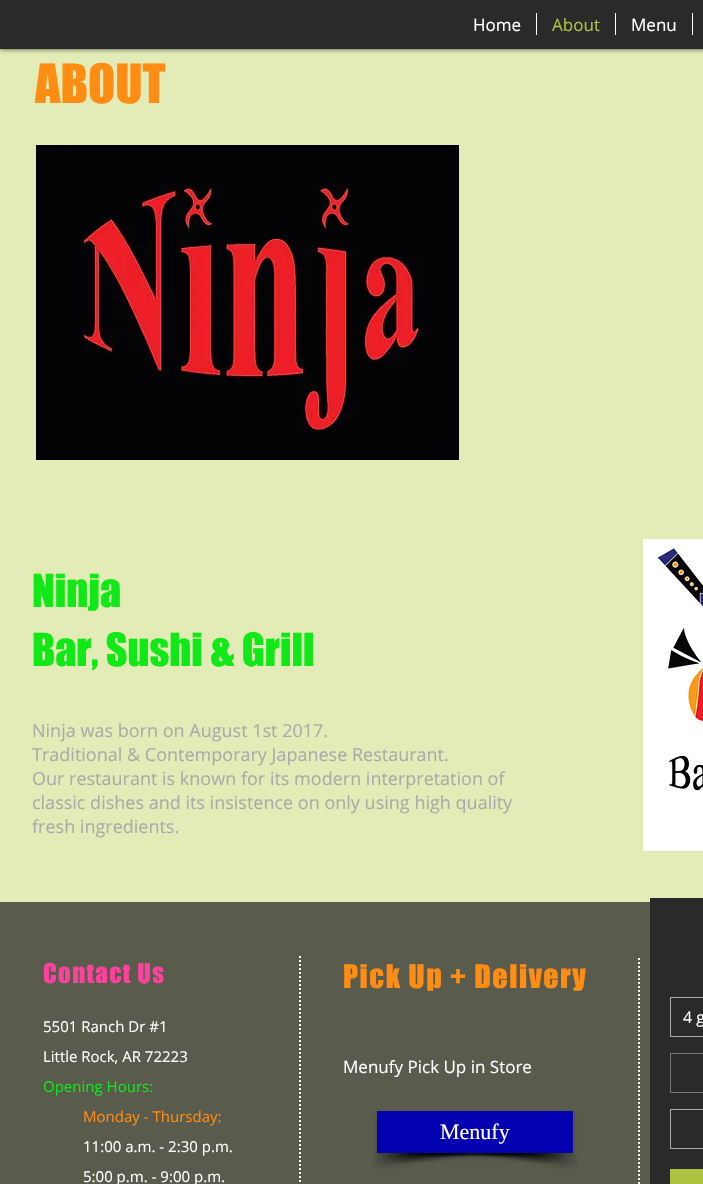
void draw(SkCanvas* c) {
SkPaint p;
p.setAntiAlias(true);
auto F=[&](const char* family, int weight, float size, bool italic = false){SkFontStyle style(weight, SkFontStyle::kNormal_Width,italic ? SkFontStyle::kItalic_Slant : SkFontStyle::kUpright_Slant);SkFont result(fontMgr->matchFamilyStyle(family, style), size);result.setSubpixel(true);return result;};
auto T=[&](const char* s, float x, float y, const SkFont& font){c->drawString(s, x, y, font, p);};
auto L=[&](const char* s, float x, float y, const SkFont& font, const SkPaint& ink, float letter, float word){std::vector<SkGlyphID> glyphs(font.countText(s, strlen(s), SkTextEncoding::kUTF8));std::vector<float> xs(glyphs.size());font.textToGlyphs(s, strlen(s), SkTextEncoding::kUTF8, glyphs);font.getXPos(glyphs, xs, x);float extra = 0;for (size_t i = 0; i < glyphs.size(); i++) {xs[i] += extra;extra += letter + word * (glyphs[i] == font.unicharToGlyph(' '));}c->drawTextBlob(SkTextBlob::MakeFromPosHGlyphs(glyphs, xs, y, font), 0, 0, ink);};
auto R=[&](float x, float y, float w, float h){c->drawRect(SkRect::MakeXYWH(x, y, w, h), p);};
auto I=[&](const char* path, float x, float y, float w, float h){auto image = SkImages::DeferredFromEncodedData(SkData::MakeFromFileName(path));c->drawImageRect(image, SkRect::MakeXYWH(x, y, w, h), SkSamplingOptions());};
auto P=[&](const char* data, bool evenOdd = false){SkPath result = *SkParsePath::FromSVGString(data);if (evenOdd) result.setFillType(SkPathFillType::kEvenOdd);return result;};
c->clear(0xffe3ebb6);
p.setColor(0xb3000000);
p.setMaskFilter(SkMaskFilter::MakeBlur(kNormal_SkBlurStyle, 2.5));
c->drawRect(SkRect::MakeXYWH(0,0,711,49),p);
p.setMaskFilter(nullptr);
p.setColor(0xff2a2a2a);
R(0,0,703,49);
auto f1 = F("Open Sans",400,17);
p.setColor(0xffffffff);
T("Home",473,31,f1);
R(536,13,1,22);
p.setColor(0xffaec240);
T("About",552,31,f1);
p.setColor(0xffffffff);
R(615,13,1,22);
T("Menu",631,31,f1);
R(692,13,1,22);
auto f2 = F("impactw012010",400,50);
p.setColor(0xffff8d14);
T("ABOUT",35,103,f2);
I("1.png",36,145,423,315);
auto f3 = F("impactw012010",400,42);
p.setColor(0xff10e817);
T("Ninja",32,607,f3);
T("Bar, Sushi & Grill",32,666,f3);
I("2.png",643,539,60,312);
auto f4 = F("Open Sans",400,18);
p.setColor(0xffaaaaaa);
T("Ninja was born on August 1st 2017.",32,737,f4);
T("Traditional & Contemporary Japanese Restaurant.",32,761,f4);
T("Our restaurant is known for its modern interpretation of",32,785,f4);
T("classic dishes and its insistence on only using high quality",32,809,f4);
T("fresh ingredients.",32,833,f4);
p.setColor(0xff595b4d);
R(0,902,650,282);
auto f5 = F("impactw012010",400,25);
p.setColor(0xfffc429c);
L("Contact Us",43,983,f5,p,1.25,0);
auto f6 = F("Open Sans",400,15);
p.setColor(0xffffffff);
T("5501 Ranch Dr #1",43,1032,f6);
T("Little Rock, AR 72223",43,1062,f6);
p.setColor(0xff10e817);
T("Opening Hours:",43,1092,f6);
p.setColor(0xffff8d14);
T("Monday - Thursday:",83,1122,f6);
p.setColor(0xffffffff);
T("11:00 a.m. - 2:30 p.m.",83,1152,f6);
T("5:00 p.m. - 9:00 p.m.",83,1182,f6);
p.setStroke(true);
p.setStrokeWidth(2);
p.setPathEffect(SkDashPathEffect::Make({{2,2}}, 0));
c->drawPath(P("M300 956v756"),p);
p.setPathEffect(nullptr);
auto f7 = F("impactw012010",400,30);
p.setStroke(false);
p.setColor(0xffff8d14);
L("Pick Up + Delivery",343,988,f7,p,1.5,0);
p.setColor(0xffffffff);
T("Menufy Pick Up in Store",343,1073,f1);
p.setStroke(true);
p.setPathEffect(SkDashPathEffect::Make({{2,2}}, 0));
c->drawPath(P("M639 958v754"),p);
p.setPathEffect(nullptr);
p.setStroke(false);
p.setColor(0xff2a2a2a);
R(650,898,53,286);
p.setStroke(true);
p.setStrokeWidth(1);
p.setColor(0xffaaaaaa);
c->drawRect(SkRect::MakeXYWH(670.5,997.5,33,39),p);
auto f8 = F("Open Sans",400,16);
p.setStroke(false);
p.setColor(0xffffffff);
T("4 g",683,1023,f8);
p.setStroke(true);
p.setColor(0xff777777);
c->drawRect(SkRect::MakeXYWH(670.5,1053.5,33,39),p);
p.setColor(0xffaaaaaa);
c->drawRect(SkRect::MakeXYWH(670.5,1109.5,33,39),p);
p.setStroke(false);
p.setColor(0xffaec240);
R(670,1169,33,15);
I("3.png",372,1153,137,16);
I("4.png",459,1153,119,16);
p.setColor(0x33000000);
p.setMaskFilter(SkMaskFilter::MakeBlur(kNormal_SkBlurStyle, 3));
c->drawRect(SkRect::MakeXYWH(377,1115,196,42),p);
p.setMaskFilter(nullptr);
p.setColor(0xff0401b1);
R(377,1111,196,42);
auto f9 = F("Liberation Serif",400,22);
p.setColor(0xffffffff);
T("Menufy",440,1139,f9);
}
